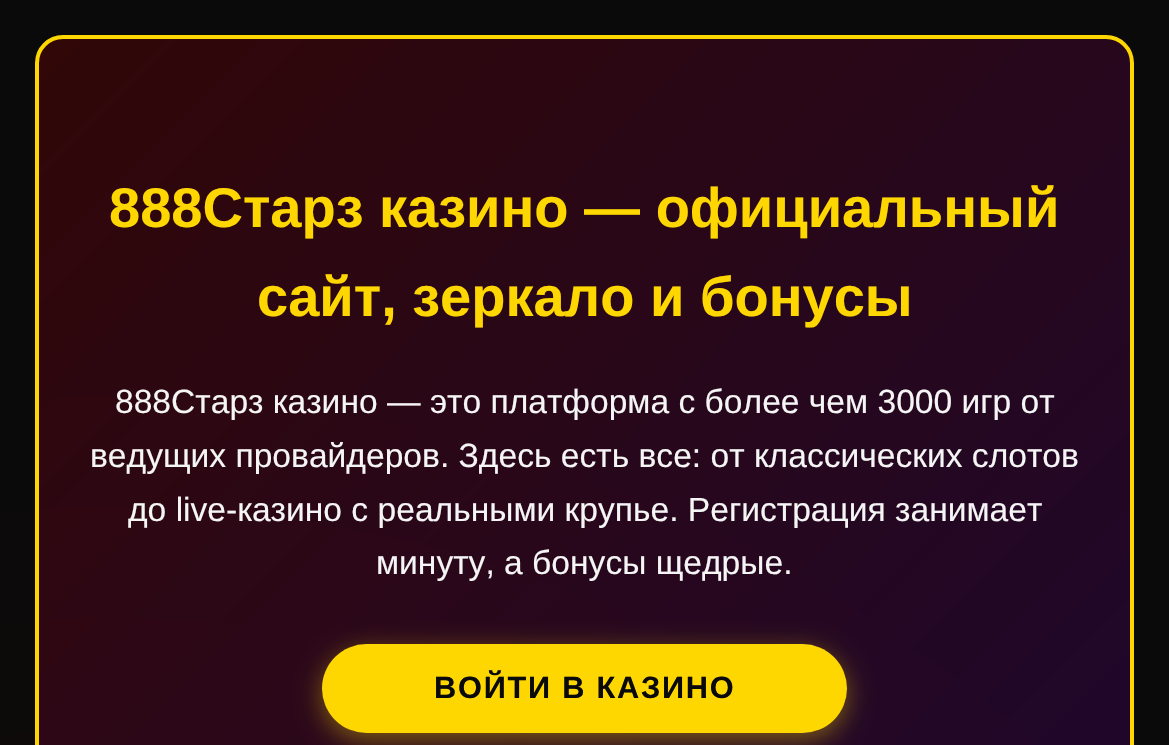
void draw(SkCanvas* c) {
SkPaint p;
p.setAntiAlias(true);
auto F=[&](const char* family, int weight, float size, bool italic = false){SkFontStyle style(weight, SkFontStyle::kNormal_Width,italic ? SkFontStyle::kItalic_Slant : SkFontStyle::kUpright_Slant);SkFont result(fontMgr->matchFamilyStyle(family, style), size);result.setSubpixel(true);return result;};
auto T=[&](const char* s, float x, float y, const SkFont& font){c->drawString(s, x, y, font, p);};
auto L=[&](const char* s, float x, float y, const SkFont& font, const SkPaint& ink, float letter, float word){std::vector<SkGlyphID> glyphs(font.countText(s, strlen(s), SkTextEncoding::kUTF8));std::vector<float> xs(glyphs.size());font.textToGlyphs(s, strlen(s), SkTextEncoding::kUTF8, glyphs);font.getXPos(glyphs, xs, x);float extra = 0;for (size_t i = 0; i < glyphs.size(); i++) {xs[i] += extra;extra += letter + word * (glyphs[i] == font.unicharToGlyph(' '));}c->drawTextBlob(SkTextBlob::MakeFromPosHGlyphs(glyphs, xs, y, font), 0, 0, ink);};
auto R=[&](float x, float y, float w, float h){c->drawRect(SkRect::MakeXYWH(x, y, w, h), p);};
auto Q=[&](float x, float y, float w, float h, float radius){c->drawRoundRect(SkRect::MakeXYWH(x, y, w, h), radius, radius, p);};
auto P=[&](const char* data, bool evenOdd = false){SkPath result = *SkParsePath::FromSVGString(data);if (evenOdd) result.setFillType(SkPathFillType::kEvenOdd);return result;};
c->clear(0xffffffff);
{
const SkColor colors[] = {0xff170909,0xff0a0a0a};
const float stops[] = {0,.2};
p.setShader(SkGradientShader::MakeRadial({117,1783}, 7209, colors, stops, 2, SkTileMode::kClamp));
p.setAlpha(255);
}
R(0,0,1169,745);
c->save();
c->clipPath(P("M63 35h1043c15.5 0 28 12.5 28 28v858c0 15.5-12.5 28-28 28h-1043c-15.5 0-28-12.5-28-28v-858c0-15.5 12.5-28 28-28z"),true);
{
const SkColor colors[] = {0x4d8b0000,0x4d4b0082};
const float stops[] = {0,1};
const SkPoint ends[] = {{85,-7.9}, {1084,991}};
p.setShader(SkGradientShader::MakeLinear(ends, colors, stops, 2, SkTileMode::kClamp));
p.setAlpha(255);
}
R(39,39,1092,706);
c->restore();
p.setStroke(true);
p.setStrokeWidth(4);
p.setShader(nullptr);
p.setColor(0xffffd700);
c->drawRoundRect(SkRect::MakeXYWH(37,37,1095,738),26,26,p);
auto f1 = F("Liberation Sans",700,56);
p.setStroke(false);
T("888Старз казино — официальный",109,227,f1);
T("сайт, зеркало и бонусы",257,316,f1);
auto f2 = F("Liberation Sans",400,33.6);
p.setColor(0xfff5f5f5);
T("888Старз казино — это платформа с более чем 3000 игр от",115,413,f2);
T("ведущих провайдеров. Здесь есть все: от классических слотов",90,467,f2);
T("до live-казино с реальными крупье. Регистрация занимает",128,521,f2);
T("минуту, а бонусы щедрые.",376,574,f2);
p.setColor(0x66ffd700);
p.setMaskFilter(SkMaskFilter::MakeBlur(kNormal_SkBlurStyle, 13));
c->drawRoundRect(SkRect::MakeXYWH(322,651,525,89),44.5,44.5,p);
p.setMaskFilter(nullptr);
p.setColor(0xffffd700);
Q(322,644,525,89,44.5);
auto f3 = F("Liberation Sans",700,30.75);
p.setColor(0xff0a0a0a);
L("ВОЙТИ В КАЗИНО",434,698,f3,p,1.75,0);
}
